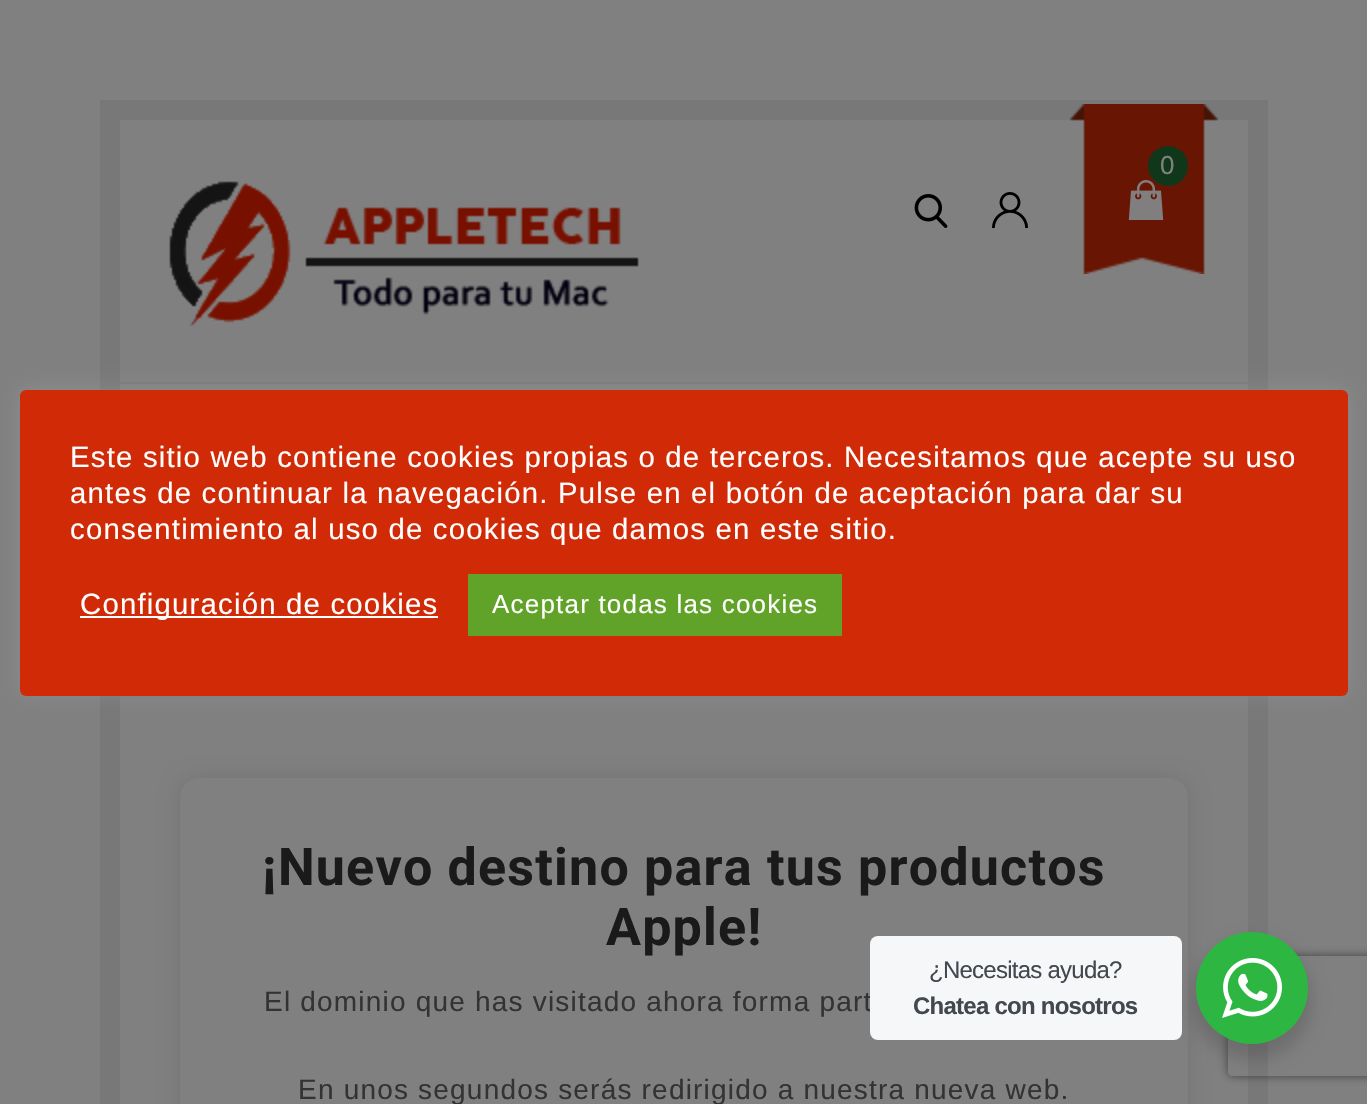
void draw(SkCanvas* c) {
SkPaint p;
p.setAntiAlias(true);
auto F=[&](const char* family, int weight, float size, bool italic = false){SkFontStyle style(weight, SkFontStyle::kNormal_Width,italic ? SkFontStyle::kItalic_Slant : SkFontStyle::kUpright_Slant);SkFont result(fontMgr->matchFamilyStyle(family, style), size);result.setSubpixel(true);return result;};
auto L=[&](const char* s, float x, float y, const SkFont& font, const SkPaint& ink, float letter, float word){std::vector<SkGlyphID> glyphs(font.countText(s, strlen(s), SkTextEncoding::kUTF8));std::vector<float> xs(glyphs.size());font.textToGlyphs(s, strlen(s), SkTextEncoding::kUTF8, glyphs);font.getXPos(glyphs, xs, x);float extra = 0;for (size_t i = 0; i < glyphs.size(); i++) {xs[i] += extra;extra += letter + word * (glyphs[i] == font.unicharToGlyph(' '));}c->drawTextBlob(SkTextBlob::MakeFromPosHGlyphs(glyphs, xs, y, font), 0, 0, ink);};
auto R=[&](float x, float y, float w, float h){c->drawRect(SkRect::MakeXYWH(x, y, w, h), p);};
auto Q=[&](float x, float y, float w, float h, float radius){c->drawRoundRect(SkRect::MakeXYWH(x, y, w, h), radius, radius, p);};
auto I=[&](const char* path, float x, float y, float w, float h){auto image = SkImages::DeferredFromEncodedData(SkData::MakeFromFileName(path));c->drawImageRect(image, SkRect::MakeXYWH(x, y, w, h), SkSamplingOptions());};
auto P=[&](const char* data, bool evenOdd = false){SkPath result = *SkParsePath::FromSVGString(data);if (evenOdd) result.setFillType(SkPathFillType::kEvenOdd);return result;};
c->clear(0xff808080);
p.setColor(0xff787878);
R(100,100,1168,1004);
p.setColor(0xff808080);
R(120,120,1128,984);
p.setColor(0xff797979);
R(120,382,1128,2);
I("1.png",1070,104,148,170);
I("2.png",1128,180,36,40);
p.setColor(0xff103719);
c->drawCircle(1168,166,20,p);
auto f1 = F("Liberation Sans",400,26);
p.setColor(0xff808080);
L("0",1160,174,f1,p,1.2,0);
I("3.png",914,194,34,34);
I("4.png",992,192,36,36);
I("5.png",169,181,470,145);
p.setColor(0xff7c7c7c);
R(120,696,1128,2);
p.setColor(0x1a000000);
p.setMaskFilter(SkMaskFilter::MakeBlur(kNormal_SkBlurStyle, 10));
c->drawRoundRect(SkRect::MakeXYWH(180,778,1008,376),20,20,p);
p.setMaskFilter(nullptr);
p.setColor(0xff808080);
Q(180,778,1008,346,20);
auto f2 = F("Roboto",700,52);
p.setColor(0xff1a1a1a);
L("¡Nuevo destino para tus productos",262,885,f2,p,1.2,0);
L("Apple!",606,945,f2,p,1.2,0);
auto f3 = F("Liberation Sans",400,28);
p.setColor(0xff333333);
L("El dominio que has visitado ahora forma part",264,1011,f3,p,1.2,0);
L("En unos segundos serás redirigido a nuestra nueva web.",298,1099,f3,p,1.2,0);
p.setColor(0x4dacabab);
p.setMaskFilter(SkMaskFilter::MakeBlur(kNormal_SkBlurStyle, 10));
c->drawRoundRect(SkRect::MakeXYWH(20,388,1328,306),6,6,p);
p.setMaskFilter(nullptr);
p.setColor(0xffd12a07);
Q(20,390,1328,306,6);
auto f4 = F("Liberation Sans",400,29.35);
p.setColor(0xffffffff);
L("Este sitio web contiene cookies propias o de terceros. Necesitamos que acepte su uso",70,467,f4,p,1.2,0);
L("antes de continuar la navegación. Pulse en el botón de aceptación para dar su",70,503,f4,p,1.2,0);
L("consentimiento al uso de cookies que damos en este sitio.",70,539,f4,p,1.2,0);
R(80,616,358,2);
L("Configuración de cookies",80,614,f4,p,1.2,0);
p.setColor(0xff61a229);
R(468,574,374,62);
p.setColor(0xffffffff);
L("Aceptar todas las cookies",492,613,f1,p,1.2,0);
p.setColor(0x24000000);
p.setMaskFilter(SkMaskFilter::MakeBlur(kNormal_SkBlurStyle, 8));
c->drawRoundRect(SkRect::MakeXYWH(1192,940,120,120),60,60,p);
p.setMaskFilter(nullptr);
p.setColor(0xfff5f7f9);
Q(870,936,312,104,8);
auto f5 = F("Liberation Sans",400,24);
p.setColor(0xff43474e);
L("¿Necesitas ayuda?",929,978,f5,p,-.75,0);
auto f6 = F("Liberation Sans",700,24);
L("Chatea con nosotros",913,1014,f6,p,-.75,0);
c->save();
c->clipPath(P("M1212 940h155v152h-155zm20 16h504c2 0 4 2 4 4v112c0 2-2 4-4 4h-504c-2 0-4-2-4-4v-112c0-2 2-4 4-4z",true),true);
p.setColor(0xff404040);
p.setMaskFilter(SkMaskFilter::MakeBlur(kNormal_SkBlurStyle, 5));
c->drawRoundRect(SkRect::MakeXYWH(1228,956,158,120),4,4,p);
p.setMaskFilter(nullptr);
c->restore();
p.setColor(0xff2db742);
c->drawCircle(1252,988,56,p);
I("6.png",1222,958,60,60);
}
